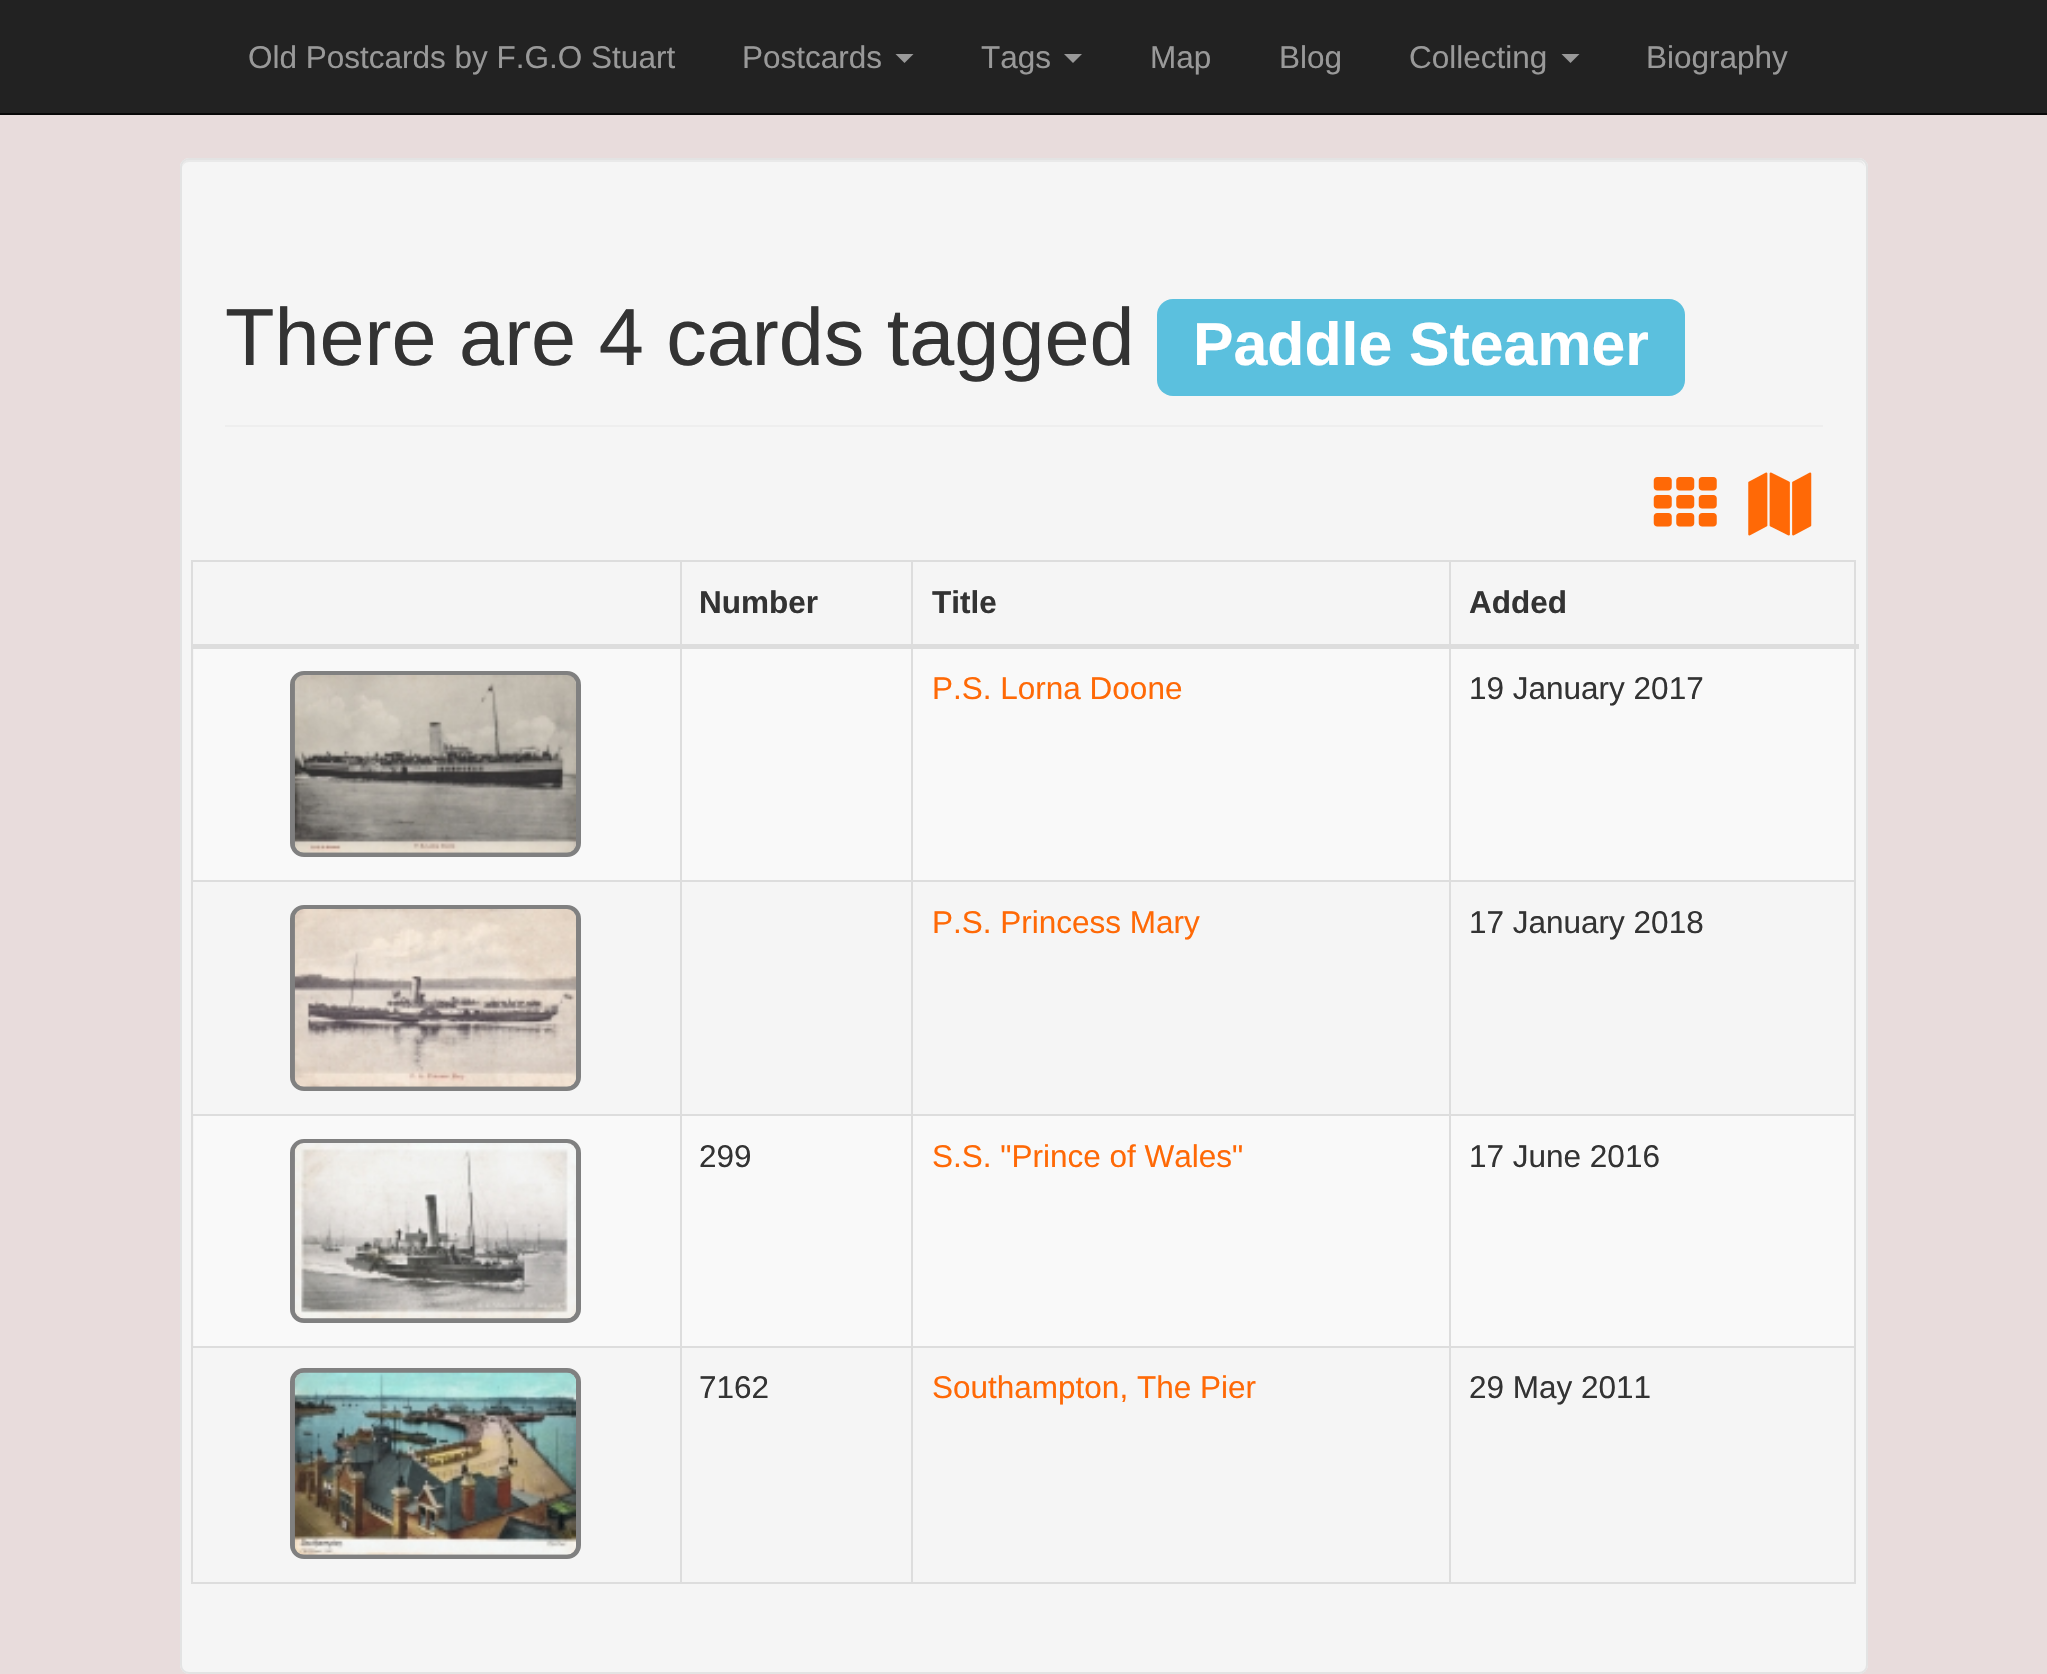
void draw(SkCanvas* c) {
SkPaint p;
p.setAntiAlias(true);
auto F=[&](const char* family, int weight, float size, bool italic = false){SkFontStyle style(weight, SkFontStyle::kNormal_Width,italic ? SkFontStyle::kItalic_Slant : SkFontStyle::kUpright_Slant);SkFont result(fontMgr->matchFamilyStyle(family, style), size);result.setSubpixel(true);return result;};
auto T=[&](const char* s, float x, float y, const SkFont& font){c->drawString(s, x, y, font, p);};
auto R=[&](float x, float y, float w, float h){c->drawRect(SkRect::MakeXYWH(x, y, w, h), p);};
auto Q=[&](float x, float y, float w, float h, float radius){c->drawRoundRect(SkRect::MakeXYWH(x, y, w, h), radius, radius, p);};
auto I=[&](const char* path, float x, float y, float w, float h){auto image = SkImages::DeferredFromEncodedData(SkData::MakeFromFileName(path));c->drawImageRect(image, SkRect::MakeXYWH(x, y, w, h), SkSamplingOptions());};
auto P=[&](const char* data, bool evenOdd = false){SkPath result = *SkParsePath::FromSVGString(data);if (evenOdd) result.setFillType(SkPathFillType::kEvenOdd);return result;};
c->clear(0xffe8dcdc);
p.setColor(0xff222222);
R(0,0,2047,113);
p.setColor(0xff080808);
R(0,113,2047,2);
auto f1 = F("Liberation Sans",400,31.5);
p.setColor(0xff999999);
T("Old Postcards by F.G.O Stuart",248,68,f1);
T("Postcards",742,68,f1);
c->drawPath(P("M895.5 54h18l-9 9z"),p);
T("Tags",981,68,f1);
c->drawPath(P("M1064 54h18l-9 9z"),p);
T("Map",1150,68,f1);
T("Blog",1279,68,f1);
T("Collecting",1409,68,f1);
c->drawPath(P("M1561.5 54h18l-9 9z"),p);
T("Biography",1646,68,f1);
p.setColor(0xfff5f5f5);
Q(180,158,1688,1516,9);
p.setColor(0xffe9e9e9);
c->drawPath(P("M189 162h1669c4 0 7 3 7 7c0-4-2-9-7-9h-1669c-5 0-7 5-7 9c0-4 3-7 7-7z"),p);
p.setStroke(true);
p.setStrokeWidth(2);
p.setColor(0xffe3e3e3);
c->drawRoundRect(SkRect::MakeXYWH(181,159,1686,1514),8,8,p);
p.setStroke(false);
p.setColor(0xffeeeeee);
R(225,425,1598,2);
auto f2 = F("Liberation Sans",400,81);
p.setColor(0xff333333);
T("There are 4 cards tagged",225,365,f2);
p.setColor(0xff5bc0de);
Q(1157,299,528,97,16);
auto f3 = F("Liberation Sans",700,60.75);
p.setColor(0xffffffff);
T("Paddle Steamer",1193,365,f3);
I("1.png",1653,477,64,50);
I("2.png",1748,472,64,64);
p.setColor(0xffdddddd);
R(191,560,1665,2);
R(1854,560,2,1024);
R(191,1582,1665,2);
R(191,560,2,1024);
auto f4 = F("Liberation Sans",700,31.5);
p.setColor(0xff333333);
T("Number",699,613,f4);
T("Title",932,613,f4);
p.setColor(0xffdddddd);
R(1449,880,407,2);
R(1449,1114,407,2);
R(1449,1346,407,2);
R(1449,1346,2,238);
R(911,1346,540,2);
R(1449,1114,2,234);
R(911,1114,540,2);
R(1449,880,2,236);
R(911,880,540,2);
p.setColor(0xfff9f9f9);
R(682,1116,767,230);
p.setColor(0xffdddddd);
R(911,1346,2,238);
R(680,1346,234,2);
R(911,1114,2,234);
R(680,1114,234,2);
R(911,880,2,236);
R(680,880,234,2);
R(680,1346,2,238);
R(191,1346,491,2);
R(680,1114,2,234);
R(191,1114,491,2);
R(680,880,2,236);
R(191,880,491,2);
R(680,560,2,322);
p.setColor(0xfff9f9f9);
R(682,649,767,231);
p.setColor(0xffdddddd);
R(911,560,2,322);
R(1449,560,2,322);
R(191,644,1668,5);
p.setColor(0xff333333);
T("Added",1469,613,f4);
p.setColor(0xfff9f9f9);
R(194,649,486,231);
p.setStroke(true);
p.setStrokeWidth(5);
p.setColor(0xff808080);
c->drawRoundRect(SkRect::MakeXYWH(292.5,673.5,286,181),11.5,11.5,p);
I("3.png",294,675,282,178);
p.setStroke(false);
p.setColor(0xffff6906);
T("P.S. Lorna Doone",932,699,f1);
p.setColor(0xfff9f9f9);
R(1451,649,403,231);
p.setColor(0xff333333);
T("19 January 2017",1469,699,f1);
p.setStroke(true);
p.setColor(0xff808080);
c->drawRoundRect(SkRect::MakeXYWH(292.5,907.5,286,181),11.5,11.5,p);
I("4.png",294,909,282,178);
p.setStroke(false);
p.setColor(0xffff6906);
T("P.S. Princess Mary",932,933,f1);
p.setColor(0xff333333);
T("17 January 2018",1469,933,f1);
p.setColor(0xfff9f9f9);
R(194,1116,486,230);
p.setStroke(true);
p.setColor(0xff808080);
c->drawRoundRect(SkRect::MakeXYWH(292.5,1141.5,286,179),11.5,11.5,p);
I("5.png",294,1143,282,176);
p.setStroke(false);
p.setColor(0xff333333);
T("299",699,1167,f1);
p.setColor(0xffff6906);
T("S.S. \"Prince of Wales\"",932,1167,f1);
p.setColor(0xfff9f9f9);
R(1451,1116,403,230);
p.setColor(0xff333333);
T("17 June 2016",1469,1167,f1);
p.setStroke(true);
p.setColor(0xff808080);
c->drawRoundRect(SkRect::MakeXYWH(292.5,1370.5,286,186),11.5,11.5,p);
I("6.png",294,1372,282,183);
p.setStroke(false);
p.setColor(0xff333333);
T("7162",699,1398,f1);
p.setColor(0xffff6906);
T("Southampton, The Pier",932,1398,f1);
p.setColor(0xff333333);
T("29 May 2011",1469,1398,f1);
}
